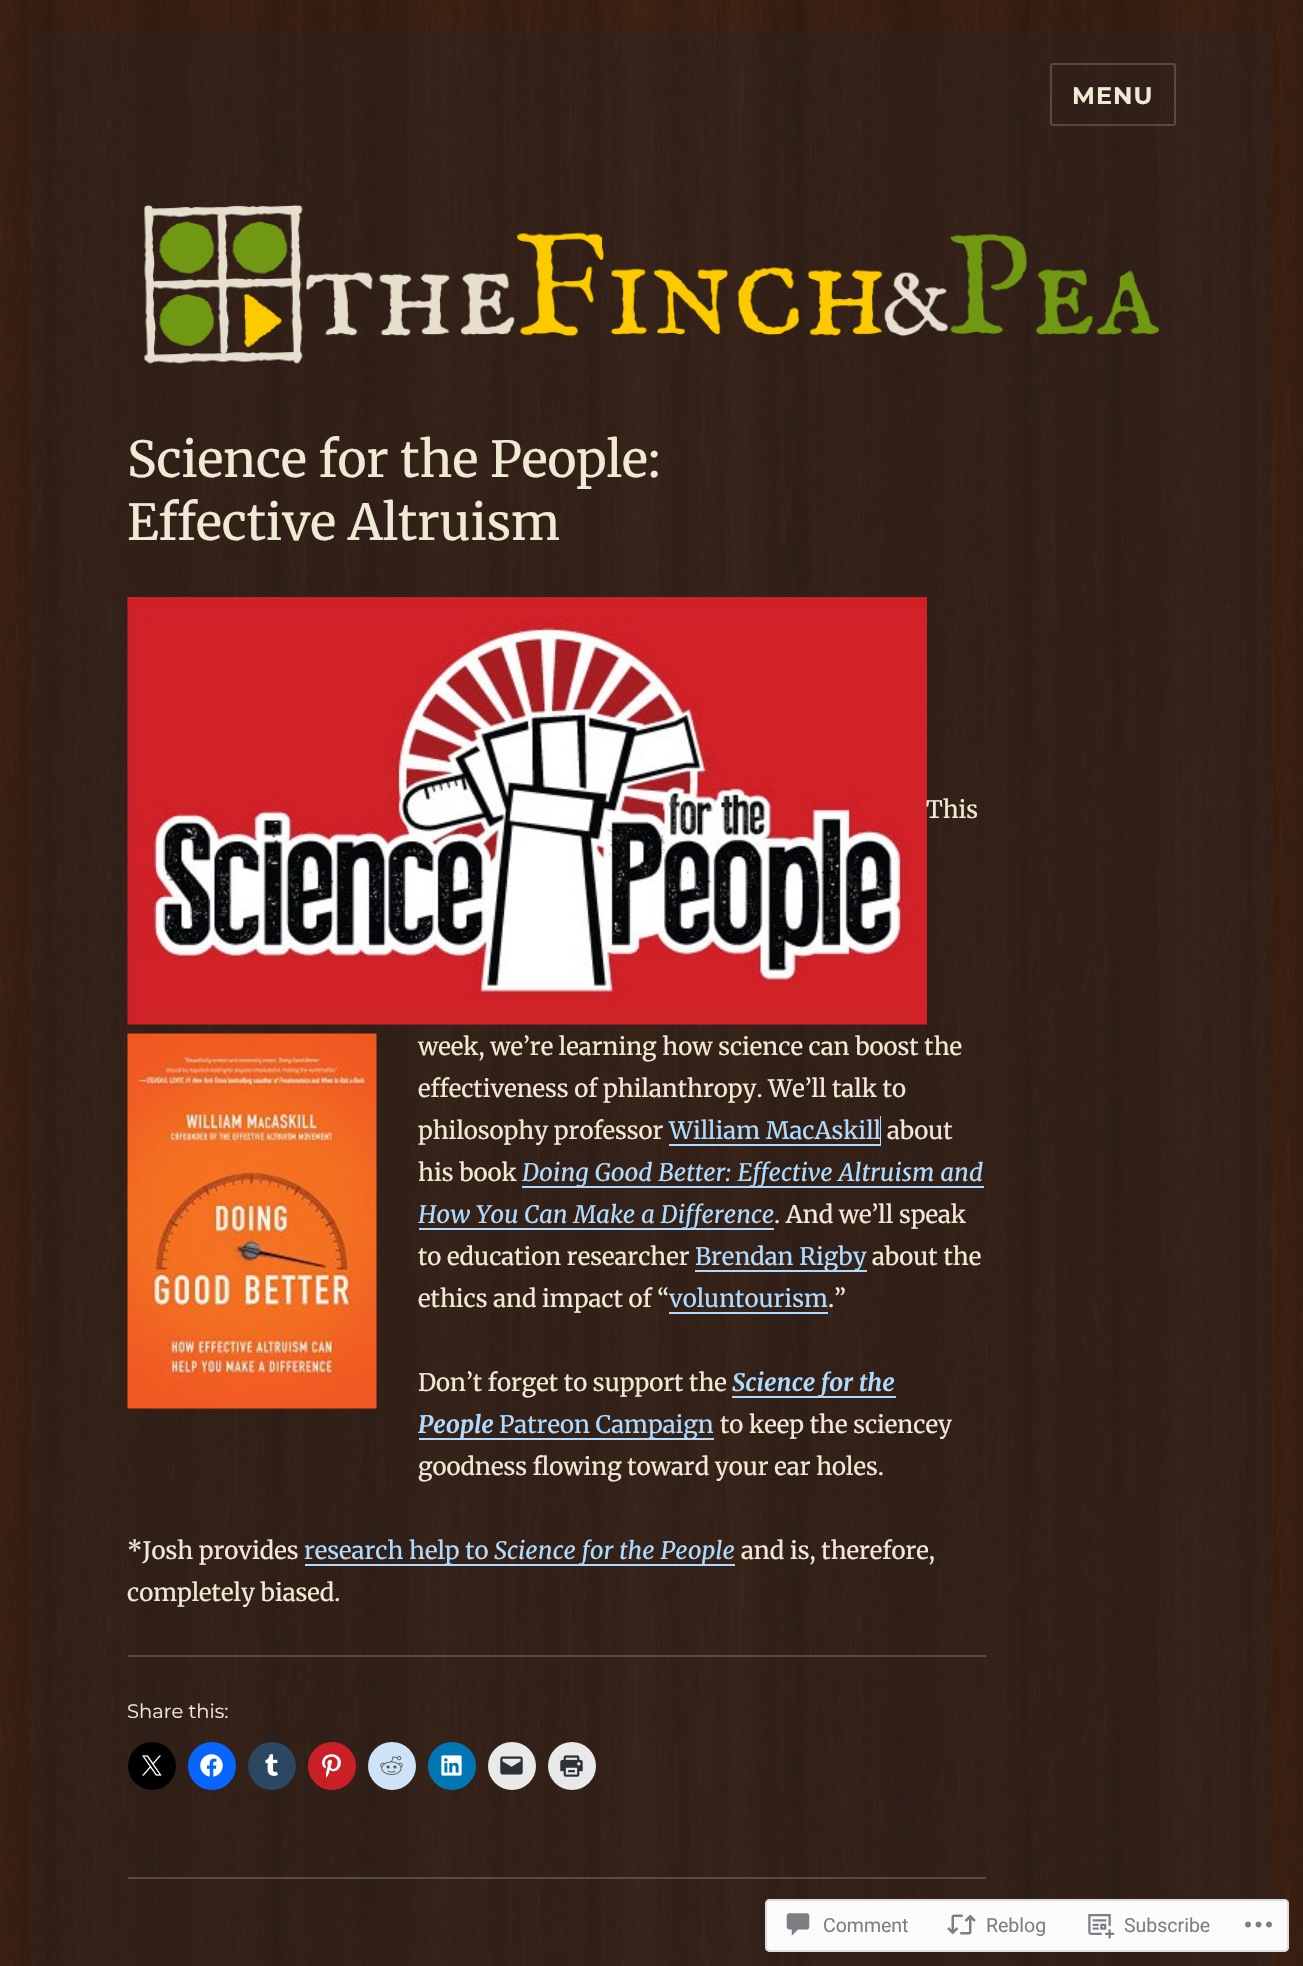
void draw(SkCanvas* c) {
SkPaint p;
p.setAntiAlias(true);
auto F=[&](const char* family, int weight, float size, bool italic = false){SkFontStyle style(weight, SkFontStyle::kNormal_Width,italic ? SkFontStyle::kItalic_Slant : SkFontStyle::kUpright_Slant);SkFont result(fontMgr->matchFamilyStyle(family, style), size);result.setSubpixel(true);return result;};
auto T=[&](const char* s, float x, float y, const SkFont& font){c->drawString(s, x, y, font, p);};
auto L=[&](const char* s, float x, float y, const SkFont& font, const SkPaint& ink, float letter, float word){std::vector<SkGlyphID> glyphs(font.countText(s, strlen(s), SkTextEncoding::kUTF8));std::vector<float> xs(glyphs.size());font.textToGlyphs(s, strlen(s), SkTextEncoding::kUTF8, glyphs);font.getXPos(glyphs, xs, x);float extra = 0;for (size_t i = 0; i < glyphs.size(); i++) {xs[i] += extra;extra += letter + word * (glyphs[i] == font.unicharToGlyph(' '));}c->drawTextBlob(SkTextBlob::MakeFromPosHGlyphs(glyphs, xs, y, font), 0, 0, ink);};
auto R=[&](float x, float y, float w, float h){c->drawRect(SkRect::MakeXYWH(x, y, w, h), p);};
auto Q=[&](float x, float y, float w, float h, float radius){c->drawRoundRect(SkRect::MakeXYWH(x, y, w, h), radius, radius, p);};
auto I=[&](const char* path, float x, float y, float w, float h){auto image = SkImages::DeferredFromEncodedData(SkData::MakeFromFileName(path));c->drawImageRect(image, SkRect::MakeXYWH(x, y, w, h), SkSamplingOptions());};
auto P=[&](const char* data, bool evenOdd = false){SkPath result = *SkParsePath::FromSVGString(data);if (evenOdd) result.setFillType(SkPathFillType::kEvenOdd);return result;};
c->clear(0xffffffff);
I("1.png",0,0,1303,1966);
p.setStroke(true);
p.setStrokeWidth(2);
p.setColor(0x33f0ead4);
c->drawRoundRect(SkRect::MakeXYWH(1051,64,124,61),2,2,p);
auto f1 = F("Montserrat",100,24);
p.setStroke(false);
p.setColor(0xfff0ead4);
L("MENU",1072,104,f1,p,1,0);
I("2.png",144,204,1016,160);
auto f2 = F("Merriweather",300,49.5);
T("Science for the People:",127,477,f2);
T("Effective Altruism",127,540,f2);
I("3.png",127,597,800,428);
auto f3 = F("Merriweather",300,24);
T("This",926,818,f3);
I("4.png",127,1033,250,376);
T("week, we’re learning how science can boost the",418,1055,f3);
T("effectiveness of philanthropy. We’ll talk to",418,1097,f3);
T("philosophy professor",418,1139,f3);
p.setColor(0xffaedbff);
c->drawPath(P("M669 1144v2h212v-30h-1v28z"),p);
T("William MacAskill",669,1139,f3);
p.setColor(0xfff0ead4);
T("about",887,1139,f3);
T("his book",418,1181,f3);
p.setColor(0xffaedbff);
R(522,1186,462,2);
auto f4 = F("Merriweather",400,24,true);
T("Doing Good Better: Effective Altruism and",522,1181,f4);
R(419,1228,355,2);
T("How You Can Make a Difference",418,1223,f4);
p.setColor(0xfff0ead4);
T(". And we’ll speak",774,1223,f3);
T("to education researcher",418,1265,f3);
p.setColor(0xffaedbff);
R(695,1270,172,2);
T("Brendan Rigby",695,1265,f3);
p.setColor(0xfff0ead4);
T("about the",872,1265,f3);
T("ethics and impact of “",418,1307,f3);
p.setColor(0xffaedbff);
T("voluntourism",669,1307,f3);
R(669,1312,159,2);
p.setColor(0xfff0ead4);
T(".”",828,1307,f3);
T("Don’t forget to support the",418,1391,f3);
p.setColor(0xffaedbff);
c->drawPath(P("M732 1396v2h164v-30v28z"),p);
auto f5 = F("Merriweather",700,24,true);
T("Science for the",732,1391,f5);
c->drawPath(P("M419 1438v2h81v-30v28z"),p);
T("People",418,1433,f5);
R(500,1438,214,2);
T("Patreon Campaign",499,1433,f3);
p.setColor(0xfff0ead4);
T("to keep the sciencey",720,1433,f3);
T("goodness flowing toward your ear holes.",418,1475,f3);
T("*Josh provides",127,1559,f3);
p.setColor(0xffaedbff);
R(305,1564,430,2);
T("research help to",304,1559,f3);
T("Science for the People",494,1559,f4);
p.setColor(0xfff0ead4);
T("and is, therefore,",741,1559,f3);
T("completely biased.",127,1601,f3);
p.setColor(0x33f0ead4);
R(128,1655,858,2);
auto f6 = F("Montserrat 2",100,19.5);
p.setColor(0xfff0ead4);
T("Share this:",127,1718,f6);
p.setColor(0xff000000);
c->drawCircle(152,1766,24,p);
I("5.png",142,1755,20,21);
p.setColor(0xff0866ff);
c->drawCircle(212,1766,24,p);
I("6.png",200,1754,23,23);
p.setColor(0xff2c4762);
c->drawCircle(272,1766,24,p);
I("7.png",265,1754,13,22);
p.setColor(0xffca1f27);
c->drawCircle(332,1766,24,p);
I("8.png",322,1754,19,24);
p.setColor(0xffcee3f8);
c->drawCircle(392,1766,24,p);
I("9.png",380,1756,23,19);
p.setColor(0xff0077b5);
c->drawCircle(452,1766,24,p);
I("10.png",441,1755,21,21);
p.setColor(0xffe9e9e9);
c->drawCircle(512,1766,24,p);
I("11.png",500,1756,23,19);
c->drawCircle(572,1766,24,p);
I("12.png",560,1755,23,22);
p.setColor(0x33f0ead4);
R(128,1877,858,2);
p.setColor(0xfaffffff);
Q(765,1899,524,53,5);
p.setStroke(true);
p.setColor(0xfadcdcde);
c->drawRoundRect(SkRect::MakeXYWH(766,1900,522,51),4,4,p);
I("13.png",786,1913,24,23);
auto f7 = F("Roboto",400,19.5);
p.setStroke(false);
p.setColor(0xff7b7f84);
T("Comment",823,1932,f7);
I("14.png",947,1914,29,21);
T("Reblog",986,1932,f7);
I("15.png",1088,1914,27,25);
T("Subscribe",1124,1932,f7);
I("16.png",1245,1921,27,7);
}
